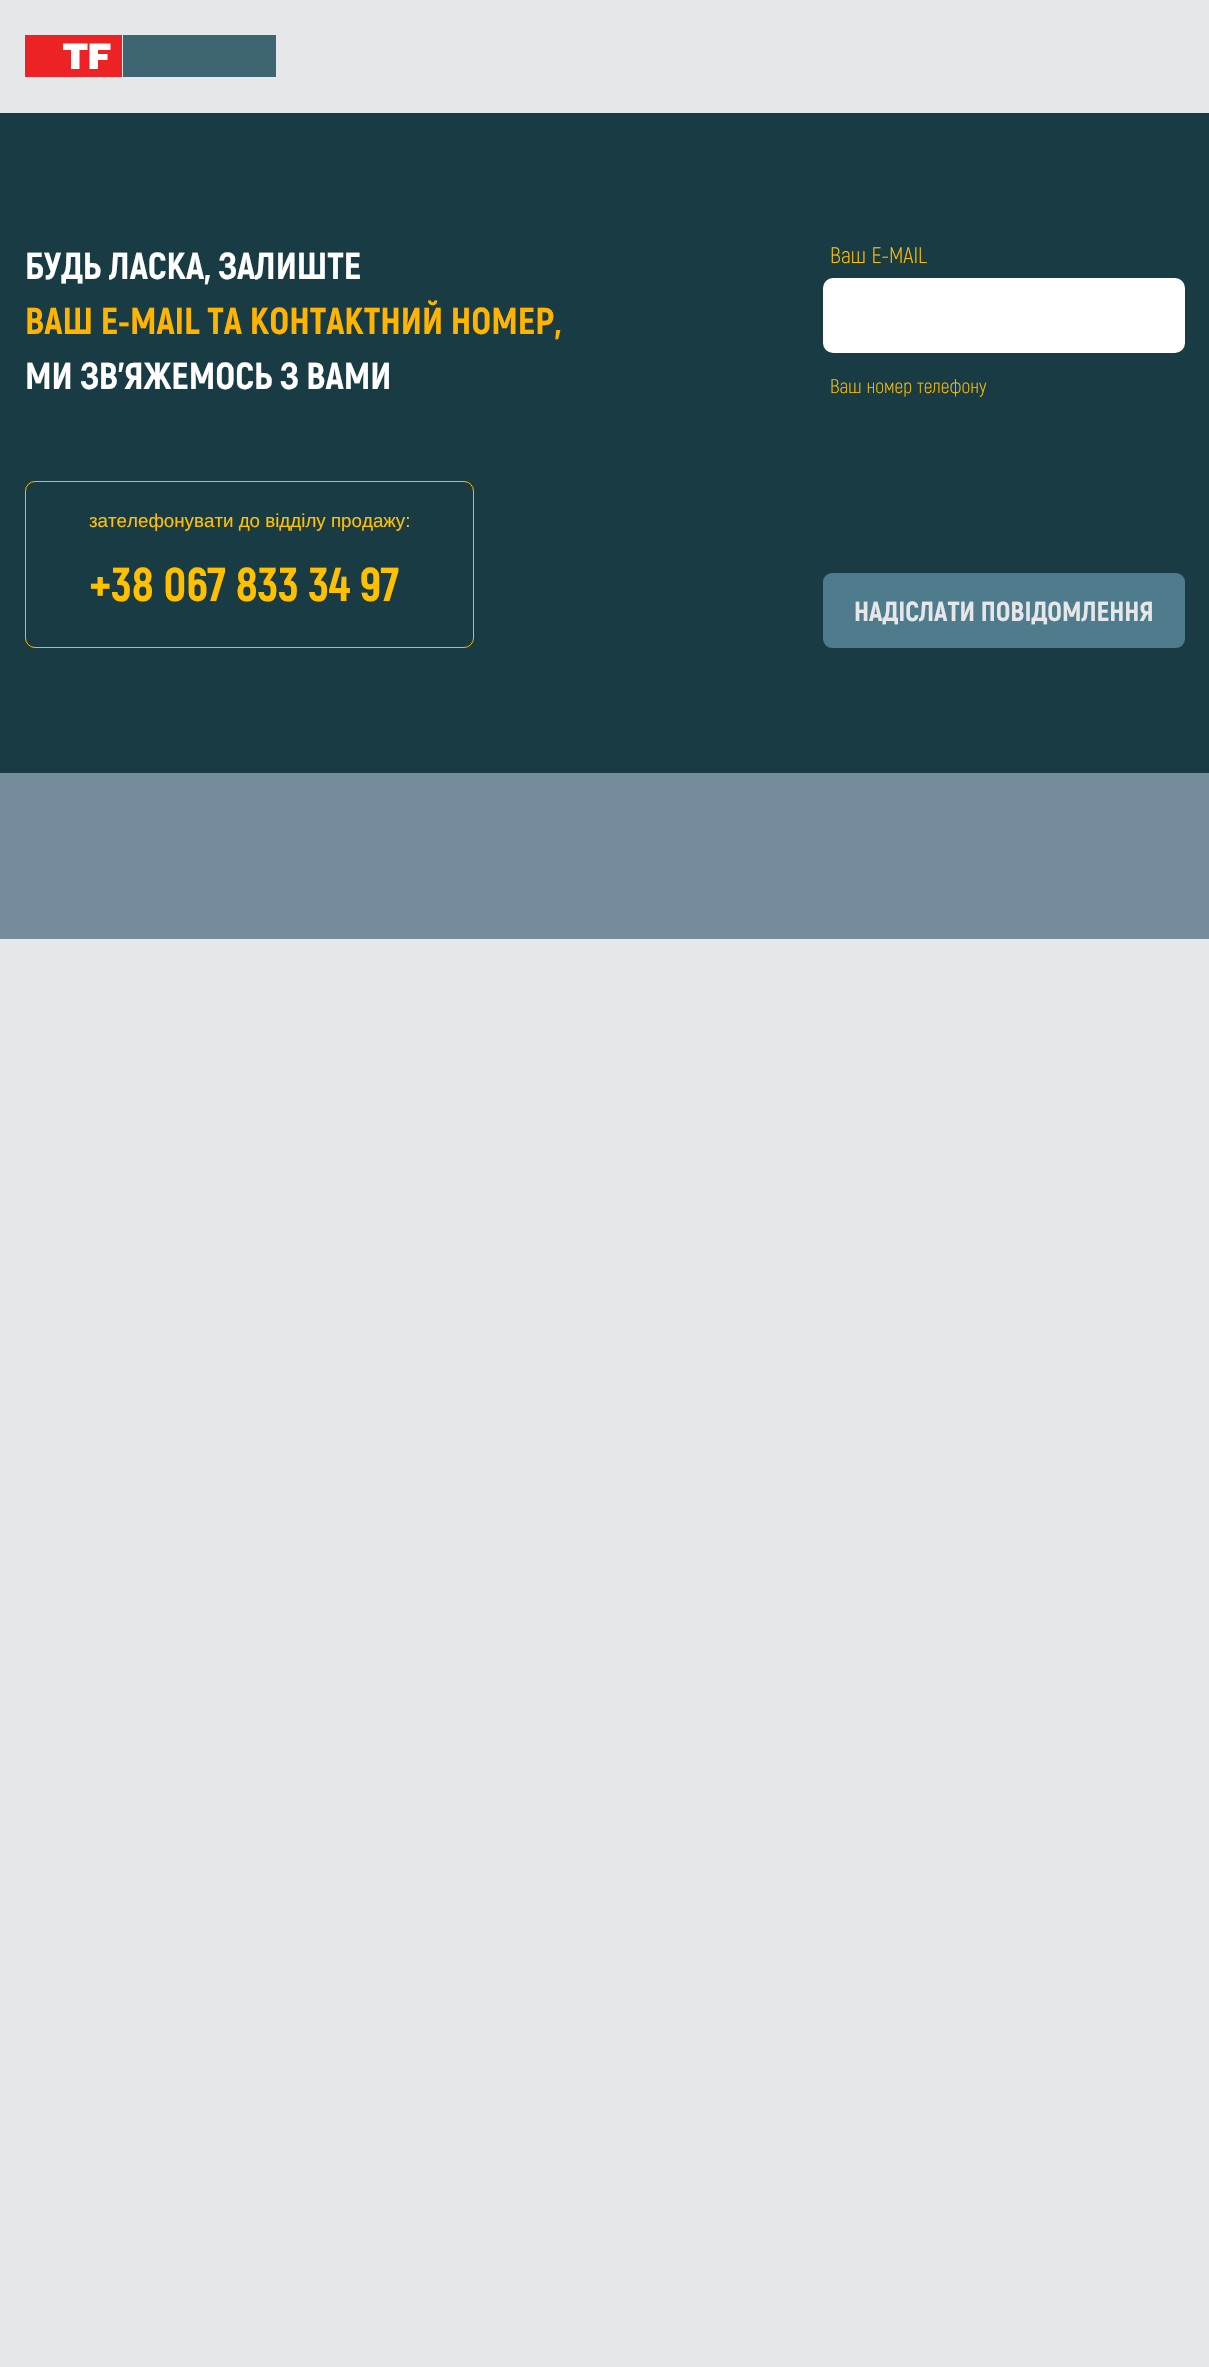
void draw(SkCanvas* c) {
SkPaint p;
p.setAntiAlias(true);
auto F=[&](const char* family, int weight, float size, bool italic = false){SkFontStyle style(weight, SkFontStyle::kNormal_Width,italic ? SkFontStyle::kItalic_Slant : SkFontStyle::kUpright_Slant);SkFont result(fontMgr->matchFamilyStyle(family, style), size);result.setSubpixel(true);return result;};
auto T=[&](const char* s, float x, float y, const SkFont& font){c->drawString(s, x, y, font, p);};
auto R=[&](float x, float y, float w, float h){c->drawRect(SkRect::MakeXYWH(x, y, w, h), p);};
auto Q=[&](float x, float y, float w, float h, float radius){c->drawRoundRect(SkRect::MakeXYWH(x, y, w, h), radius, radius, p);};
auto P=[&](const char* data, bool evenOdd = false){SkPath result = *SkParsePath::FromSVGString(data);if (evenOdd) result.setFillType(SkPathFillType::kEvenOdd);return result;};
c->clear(0xffe6e7e9);
p.setColor(0xffed2224);
R(25,35,97,42);
p.setColor(0xff3e6572);
R(123,35,153,42);
p.setColor(0xffffffff);
c->drawPath(P("M87.5 43.5h-24.5v6.5h8v19h8.5v-19h8zm20 10.5h-9.5v-4h12.5v-6.5h-21v25.5h8.5v-9h9.5z"),p);
p.setColor(0xff193b44);
R(0,113,1209,660);
auto f1 = F("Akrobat",800,37.5);
p.setColor(0xffffffff);
T("БУДЬ ЛАСКА, ЗАЛИШТЕ",25,279,f1);
p.setColor(0xffffb400);
T("ВАШ E-MAIL ТА КОНТАКТНИЙ НОМЕР,",25,334,f1);
p.setColor(0xffffffff);
T("МИ ЗВ'ЯЖЕМОСЬ З ВАМИ",25,389,f1);
p.setStroke(true);
p.setStrokeWidth(1);
p.setColor(0xffffb400);
c->drawRoundRect(SkRect::MakeXYWH(25.5,481.5,448,166),9.5,9.5,p);
auto f2 = F("Liberation Sans",400,18.75);
p.setStroke(false);
p.setColor(0xffffc000);
T("зателефонувати до відділу продажу:",89,527,f2);
auto f3 = F("Akrobat",800,47.5);
T("+38 067 833 34 97",89,601,f3);
auto f4 = F("Akrobat",300,22.5);
T("Ваш E-MAIL",830,263,f4);
p.setColor(0xffffffff);
Q(823,278,362,75,10);
auto f5 = F("Akrobat",300,19.75);
p.setColor(0xffffc000);
T("Ваш номер телефону",830,393,f5);
p.setColor(0xff4f7c8d);
Q(823,573,362,75,9);
auto f6 = F("Akrobat",800,27.5);
p.setColor(0xffe6e7e9);
T("НАДІСЛАТИ ПОВІДОМЛЕННЯ",854,621,f6);
p.setColor(0xff758c9d);
R(0,773,1209,166);
}
